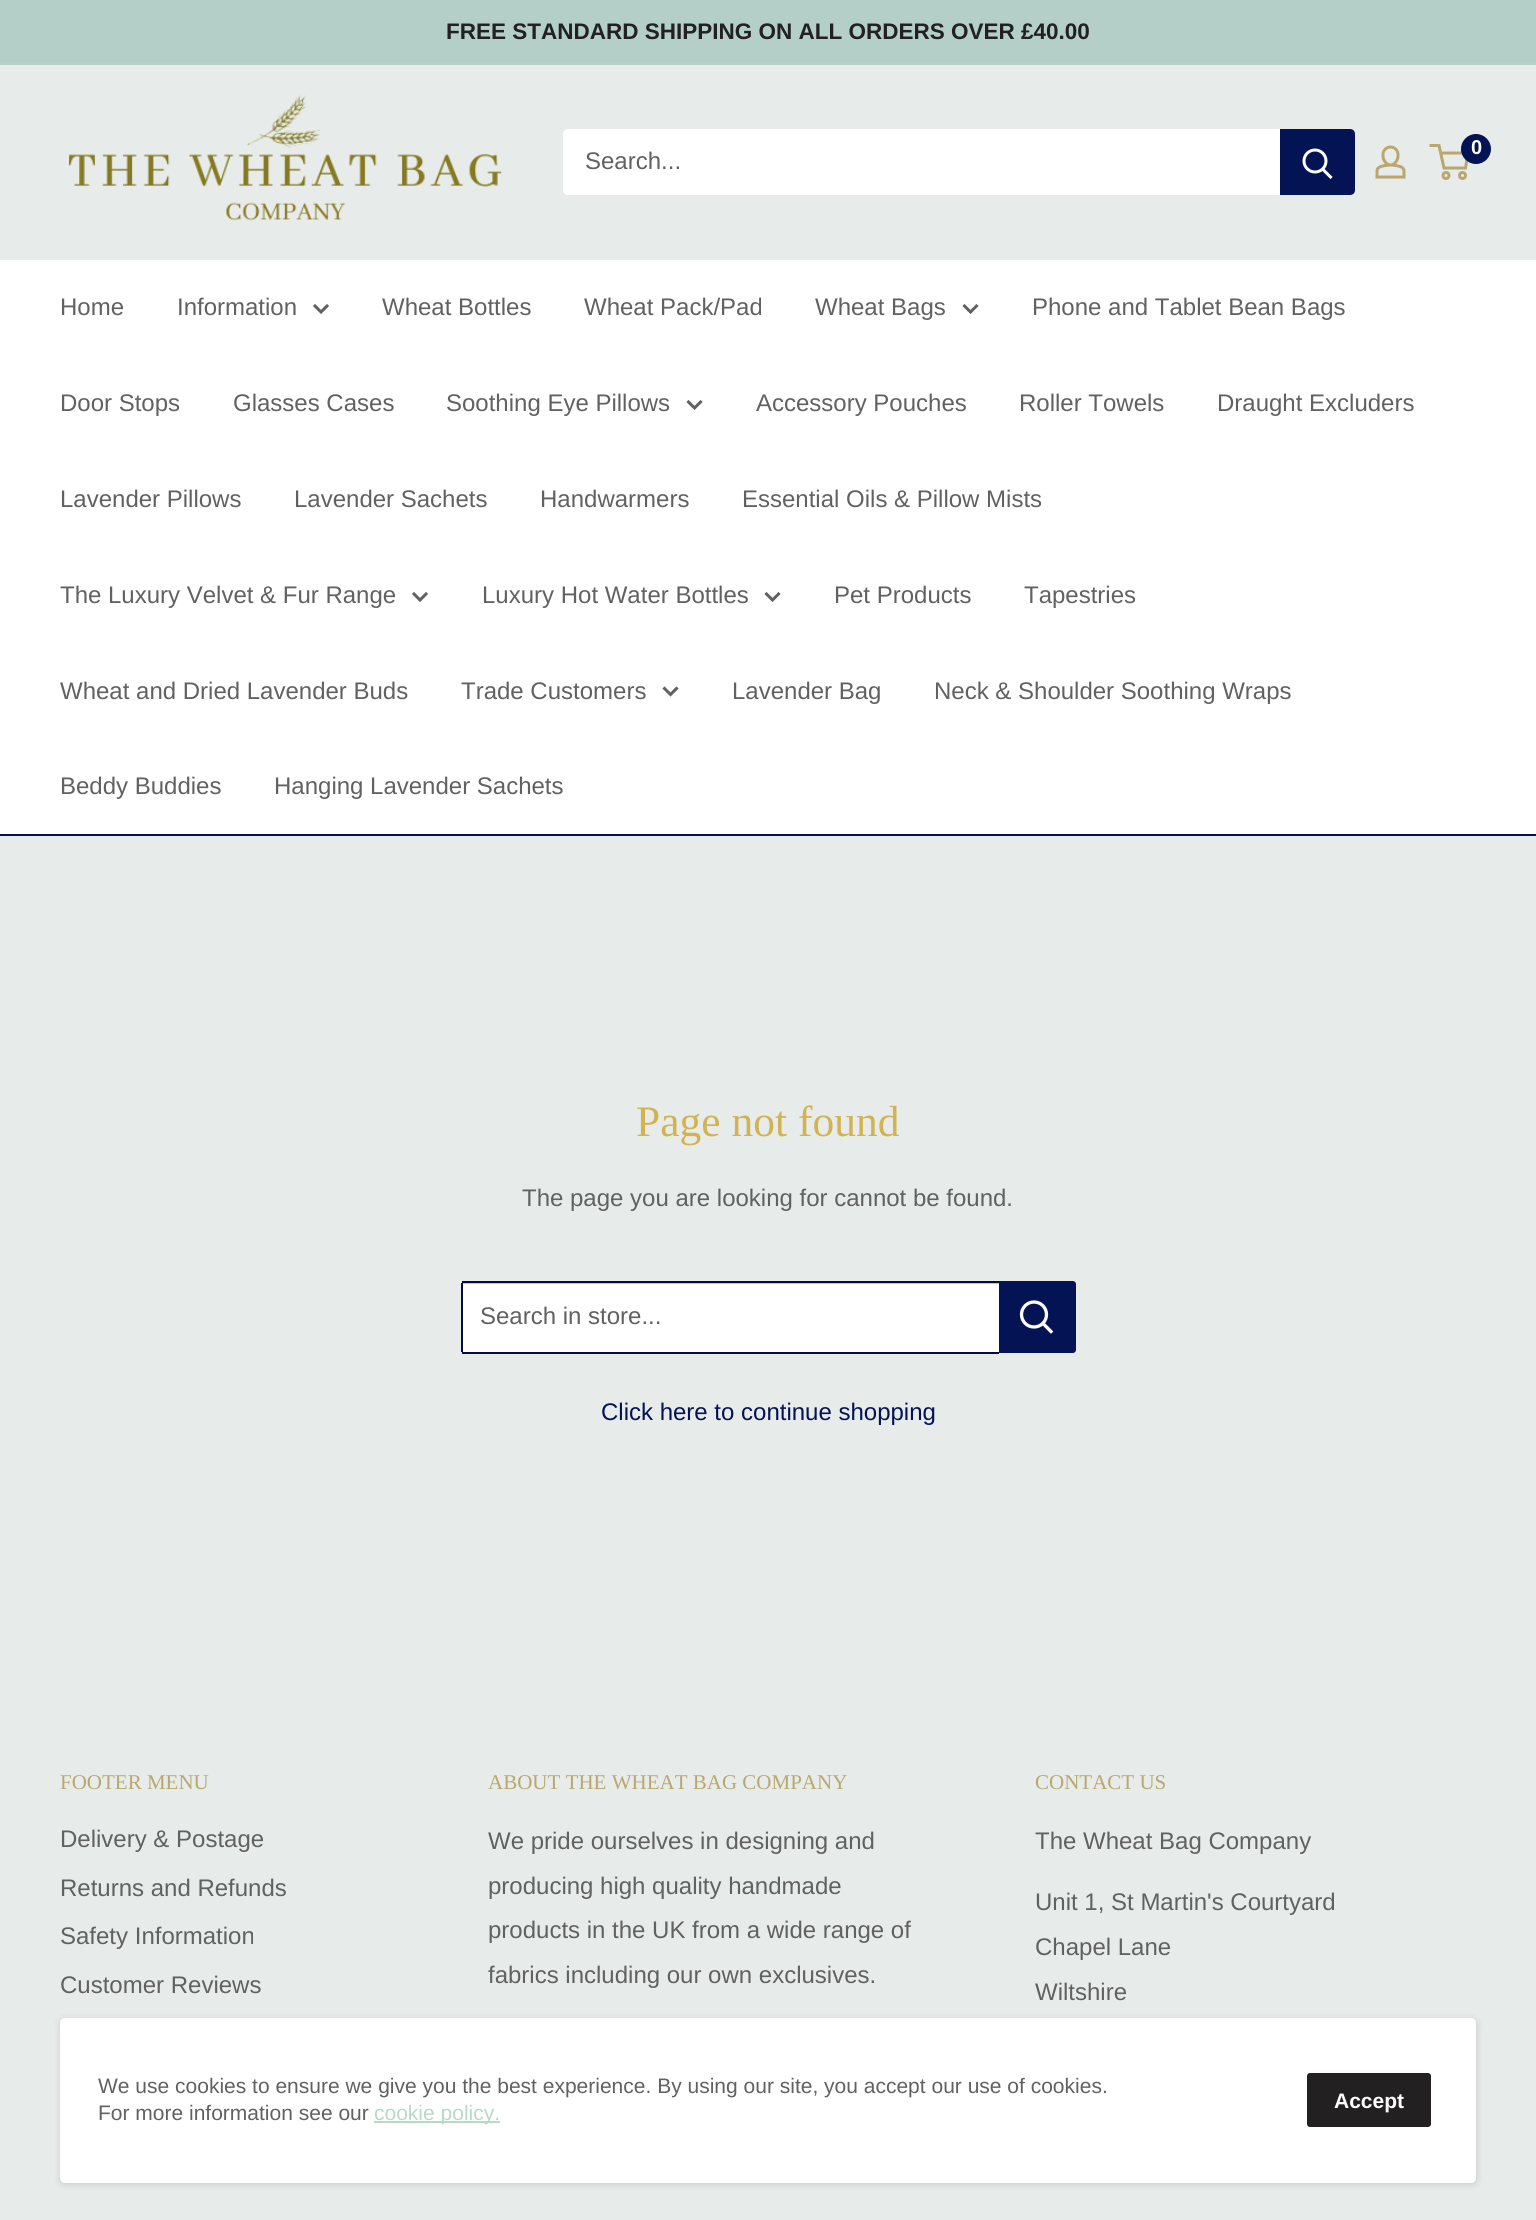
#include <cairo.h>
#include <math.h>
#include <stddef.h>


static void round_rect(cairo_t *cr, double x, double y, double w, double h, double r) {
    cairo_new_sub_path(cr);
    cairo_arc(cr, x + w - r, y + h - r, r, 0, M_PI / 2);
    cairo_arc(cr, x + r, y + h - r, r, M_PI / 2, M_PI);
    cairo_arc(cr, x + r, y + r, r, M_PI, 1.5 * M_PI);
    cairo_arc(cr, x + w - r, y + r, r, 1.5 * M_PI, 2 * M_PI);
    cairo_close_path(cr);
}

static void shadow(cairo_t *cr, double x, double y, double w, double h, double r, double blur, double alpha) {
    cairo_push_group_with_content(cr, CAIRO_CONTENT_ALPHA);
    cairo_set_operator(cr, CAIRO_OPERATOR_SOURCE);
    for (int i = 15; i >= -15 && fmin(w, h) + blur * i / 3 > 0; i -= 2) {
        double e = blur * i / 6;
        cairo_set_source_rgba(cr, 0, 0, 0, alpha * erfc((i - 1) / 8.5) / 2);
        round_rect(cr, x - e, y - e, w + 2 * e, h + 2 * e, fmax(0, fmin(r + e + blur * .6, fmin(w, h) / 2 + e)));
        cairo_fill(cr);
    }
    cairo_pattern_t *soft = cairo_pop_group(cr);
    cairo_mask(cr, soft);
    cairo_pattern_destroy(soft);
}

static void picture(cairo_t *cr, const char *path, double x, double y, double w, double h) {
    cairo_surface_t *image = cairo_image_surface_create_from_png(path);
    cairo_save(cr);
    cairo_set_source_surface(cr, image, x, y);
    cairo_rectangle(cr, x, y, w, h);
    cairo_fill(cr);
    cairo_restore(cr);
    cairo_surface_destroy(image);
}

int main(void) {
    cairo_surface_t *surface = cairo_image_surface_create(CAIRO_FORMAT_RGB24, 1536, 2220);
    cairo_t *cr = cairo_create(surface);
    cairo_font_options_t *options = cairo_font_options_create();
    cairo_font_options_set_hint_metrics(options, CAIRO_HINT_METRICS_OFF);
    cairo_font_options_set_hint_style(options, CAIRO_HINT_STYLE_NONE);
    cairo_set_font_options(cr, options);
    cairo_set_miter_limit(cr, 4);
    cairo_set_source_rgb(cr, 0.906, 0.925, 0.918);
    cairo_paint(cr);
    cairo_set_source_rgb(cr, 0.706, 0.808, 0.784);
    cairo_rectangle(cr, 0, 0, 1536, 63);
    cairo_fill(cr);
    cairo_set_source_rgb(cr, 0.71, 0.82, 0.788);
    cairo_rectangle(cr, 0, 63, 1536, 2);
    cairo_fill(cr);
    cairo_select_font_face(cr, "Liberation Sans", CAIRO_FONT_SLANT_NORMAL, CAIRO_FONT_WEIGHT_BOLD);
    cairo_set_font_size(cr, 22.5);
    cairo_set_source_rgb(cr, 0.133, 0.125, 0.129);
    cairo_move_to(cr, 446, 39);
    cairo_show_text(cr, "FREE STANDARD SHIPPING ON ALL ORDERS OVER £40.00");
    picture(cr, "img1.png", 68, 95, 434, 126);
    picture(cr, "img2.png", 1375, 145, 31, 34);
    cairo_arc(cr, 1446, 175.5, 3, 0, 2 * M_PI);
    cairo_set_source_rgb(cr, 0.725, 0.655, 0.427);
    cairo_set_line_width(cr, 3);
    cairo_stroke(cr);
    cairo_arc(cr, 1462.5, 175.5, 3, 0, 2 * M_PI);
    cairo_stroke(cr);
    cairo_new_path(cr);
    cairo_move_to(cr, 1440.5, 153);
    cairo_line_to(cr, 1468, 153);
    cairo_line_to(cr, 1465.5, 168);
    cairo_line_to(cr, 1444, 168);
    cairo_line_to(cr, 1439, 145.5);
    cairo_line_to(cr, 1429.5, 145.5);
    cairo_stroke(cr);
    cairo_set_source_rgb(cr, 0.012, 0.075, 0.329);
    cairo_arc(cr, 1476, 149, 15, 0, 2 * M_PI);
    cairo_fill(cr);
    cairo_set_font_size(cr, 20);
    cairo_set_source_rgb(cr, 1, 1, 1);
    cairo_move_to(cr, 1471, 154);
    cairo_show_text(cr, "0");
    round_rect(cr, 563, 129, 792, 66, 5);
    cairo_fill(cr);
    cairo_select_font_face(cr, "Liberation Sans", CAIRO_FONT_SLANT_NORMAL, CAIRO_FONT_WEIGHT_NORMAL);
    cairo_set_font_size(cr, 24);
    cairo_set_source_rgb(cr, 0.38, 0.38, 0.38);
    cairo_move_to(cr, 585, 169);
    cairo_show_text(cr, "Search...");
    cairo_set_source_rgb(cr, 0.012, 0.075, 0.329);
    cairo_new_path(cr);
    cairo_move_to(cr, 1280, 129);
    cairo_line_to(cr, 1350, 129);
    cairo_curve_to(cr, 1353, 129, 1355, 131, 1355, 134);
    cairo_line_to(cr, 1355, 190);
    cairo_curve_to(cr, 1355, 193, 1353, 195, 1350, 195);
    cairo_line_to(cr, 1280, 195);
    cairo_close_path(cr);
    cairo_fill(cr);
    cairo_new_path(cr);
    cairo_move_to(cr, 1330.5, 177);
    cairo_line_to(cr, 1323, 169.5);
    cairo_set_source_rgb(cr, 1, 1, 1);
    cairo_set_line_cap(cr, CAIRO_LINE_CAP_SQUARE);
    cairo_stroke(cr);
    cairo_arc(cr, 1315, 161, 11, 0, 2 * M_PI);
    cairo_set_line_cap(cr, CAIRO_LINE_CAP_BUTT);
    cairo_stroke(cr);
    cairo_rectangle(cr, 0, 260, 1536, 574);
    cairo_fill(cr);
    cairo_set_source_rgb(cr, 0.012, 0.075, 0.329);
    cairo_rectangle(cr, 0, 834, 1536, 2);
    cairo_fill(cr);
    cairo_set_source_rgb(cr, 0.38, 0.38, 0.38);
    cairo_move_to(cr, 60, 315);
    cairo_show_text(cr, "Home");
    cairo_move_to(cr, 177, 315);
    cairo_show_text(cr, "Information");
    cairo_new_path(cr);
    cairo_move_to(cr, 327, 306);
    cairo_line_to(cr, 321, 312);
    cairo_line_to(cr, 315, 306);
    cairo_set_line_cap(cr, CAIRO_LINE_CAP_SQUARE);
    cairo_stroke(cr);
    cairo_move_to(cr, 382, 315);
    cairo_show_text(cr, "Wheat Bottles");
    cairo_move_to(cr, 584, 315);
    cairo_show_text(cr, "Wheat Pack/Pad");
    cairo_move_to(cr, 815, 315);
    cairo_show_text(cr, "Wheat Bags");
    cairo_new_path(cr);
    cairo_move_to(cr, 976.5, 306);
    cairo_line_to(cr, 970.5, 312);
    cairo_line_to(cr, 964.5, 306);
    cairo_stroke(cr);
    cairo_move_to(cr, 1032, 315);
    cairo_show_text(cr, "Phone and Tablet Bean Bags");
    cairo_move_to(cr, 60, 411);
    cairo_show_text(cr, "Door Stops");
    cairo_move_to(cr, 233, 411);
    cairo_show_text(cr, "Glasses Cases");
    cairo_move_to(cr, 446, 411);
    cairo_show_text(cr, "Soothing Eye Pillows");
    cairo_new_path(cr);
    cairo_move_to(cr, 700.5, 402);
    cairo_line_to(cr, 694.5, 408);
    cairo_line_to(cr, 688.5, 402);
    cairo_stroke(cr);
    cairo_move_to(cr, 756, 411);
    cairo_show_text(cr, "Accessory Pouches");
    cairo_move_to(cr, 1019, 411);
    cairo_show_text(cr, "Roller Towels");
    cairo_move_to(cr, 1217, 411);
    cairo_show_text(cr, "Draught Excluders");
    cairo_move_to(cr, 60, 507);
    cairo_show_text(cr, "Lavender Pillows");
    cairo_move_to(cr, 294, 507);
    cairo_show_text(cr, "Lavender Sachets");
    cairo_move_to(cr, 540, 507);
    cairo_show_text(cr, "Handwarmers");
    cairo_move_to(cr, 742, 507);
    cairo_show_text(cr, "Essential Oils & Pillow Mists");
    cairo_move_to(cr, 60, 603);
    cairo_show_text(cr, "The Luxury Velvet & Fur Range");
    cairo_new_path(cr);
    cairo_move_to(cr, 426, 594);
    cairo_line_to(cr, 420, 600);
    cairo_line_to(cr, 414, 594);
    cairo_stroke(cr);
    cairo_move_to(cr, 482, 603);
    cairo_show_text(cr, "Luxury Hot Water Bottles");
    cairo_new_path(cr);
    cairo_move_to(cr, 778.5, 594);
    cairo_line_to(cr, 772.5, 600);
    cairo_line_to(cr, 766.5, 594);
    cairo_stroke(cr);
    cairo_move_to(cr, 834, 603);
    cairo_show_text(cr, "Pet Products");
    cairo_move_to(cr, 1024, 603);
    cairo_show_text(cr, "Tapestries");
    cairo_move_to(cr, 60, 699);
    cairo_show_text(cr, "Wheat and Dried Lavender Buds");
    cairo_move_to(cr, 461, 699);
    cairo_show_text(cr, "Trade Customers");
    cairo_new_path(cr);
    cairo_move_to(cr, 676.5, 688.5);
    cairo_line_to(cr, 670.5, 694.5);
    cairo_line_to(cr, 664.5, 688.5);
    cairo_stroke(cr);
    cairo_move_to(cr, 732, 699);
    cairo_show_text(cr, "Lavender Bag");
    cairo_move_to(cr, 934, 699);
    cairo_show_text(cr, "Neck & Shoulder Soothing Wraps");
    cairo_move_to(cr, 60, 794);
    cairo_show_text(cr, "Beddy Buddies");
    cairo_move_to(cr, 274, 794);
    cairo_show_text(cr, "Hanging Lavender Sachets");
    cairo_select_font_face(cr, "Liberation Serif", CAIRO_FONT_SLANT_NORMAL, CAIRO_FONT_WEIGHT_NORMAL);
    cairo_set_font_size(cr, 43.5);
    cairo_set_source_rgb(cr, 0.82, 0.702, 0.322);
    cairo_move_to(cr, 636, 1136);
    cairo_show_text(cr, "Page not found");
    cairo_select_font_face(cr, "Liberation Sans", CAIRO_FONT_SLANT_NORMAL, CAIRO_FONT_WEIGHT_NORMAL);
    cairo_set_font_size(cr, 24);
    cairo_set_source_rgb(cr, 0.38, 0.38, 0.38);
    cairo_move_to(cr, 522, 1206);
    cairo_show_text(cr, "The page you are looking for cannot be found.");
    cairo_set_source_rgb(cr, 1, 1, 1);
    cairo_new_path(cr);
    cairo_move_to(cr, 464, 1281);
    cairo_line_to(cr, 999, 1281);
    cairo_line_to(cr, 999, 1353);
    cairo_line_to(cr, 464, 1353);
    cairo_curve_to(cr, 462.5, 1353, 461, 1351.5, 461, 1350);
    cairo_line_to(cr, 461, 1284);
    cairo_curve_to(cr, 461, 1282.5, 462.5, 1281, 464, 1281);
    cairo_close_path(cr);
    cairo_fill(cr);
    cairo_set_source_rgb(cr, 0.753, 0.769, 0.831);
    cairo_new_path(cr);
    cairo_move_to(cr, 464, 1284);
    cairo_line_to(cr, 999, 1284);
    cairo_line_to(cr, 999, 1283);
    cairo_line_to(cr, 464, 1283);
    cairo_curve_to(cr, 462, 1283, 462, 1285, 462, 1286);
    cairo_curve_to(cr, 462, 1285, 463, 1284, 464, 1284);
    cairo_close_path(cr);
    cairo_fill(cr);
    cairo_set_source_rgb(cr, 0.008, 0.051, 0.231);
    cairo_rectangle(cr, 462, 1281, 537, 2);
    cairo_fill(cr);
    cairo_rectangle(cr, 462, 1352, 537, 2);
    cairo_fill(cr);
    cairo_rectangle(cr, 461, 1283, 2, 69);
    cairo_fill(cr);
    cairo_set_source_rgb(cr, 0.38, 0.38, 0.38);
    cairo_move_to(cr, 480, 1324);
    cairo_show_text(cr, "Search in store...");
    cairo_set_source_rgb(cr, 0.012, 0.075, 0.329);
    cairo_new_path(cr);
    cairo_move_to(cr, 999, 1281);
    cairo_line_to(cr, 1073, 1281);
    cairo_curve_to(cr, 1074.5, 1281, 1076, 1282.5, 1076, 1284);
    cairo_line_to(cr, 1076, 1350);
    cairo_curve_to(cr, 1076, 1351.5, 1074.5, 1353, 1073, 1353);
    cairo_line_to(cr, 999, 1353);
    cairo_close_path(cr);
    cairo_fill(cr);
    cairo_new_path(cr);
    cairo_move_to(cr, 1051, 1331.5);
    cairo_line_to(cr, 1043, 1323.5);
    cairo_set_source_rgb(cr, 1, 1, 1);
    cairo_set_line_width(cr, 3.3);
    cairo_stroke(cr);
    cairo_arc(cr, 1034, 1314.5, 12.5, 0, 2 * M_PI);
    cairo_set_line_cap(cr, CAIRO_LINE_CAP_BUTT);
    cairo_stroke(cr);
    cairo_set_source_rgb(cr, 0.012, 0.075, 0.329);
    cairo_move_to(cr, 601, 1420);
    cairo_show_text(cr, "Click here to continue shopping");
    cairo_select_font_face(cr, "Liberation Serif", CAIRO_FONT_SLANT_NORMAL, CAIRO_FONT_WEIGHT_NORMAL);
    cairo_set_font_size(cr, 21);
    cairo_set_source_rgb(cr, 0.725, 0.655, 0.427);
    cairo_move_to(cr, 60, 1789);
    cairo_show_text(cr, "FOOTER MENU");
    cairo_select_font_face(cr, "Liberation Sans", CAIRO_FONT_SLANT_NORMAL, CAIRO_FONT_WEIGHT_NORMAL);
    cairo_set_font_size(cr, 24);
    cairo_set_source_rgb(cr, 0.38, 0.38, 0.38);
    cairo_move_to(cr, 60, 1847);
    cairo_show_text(cr, "Delivery & Postage");
    cairo_move_to(cr, 60, 1896);
    cairo_show_text(cr, "Returns and Refunds");
    cairo_move_to(cr, 60, 1944);
    cairo_show_text(cr, "Safety Information");
    cairo_move_to(cr, 60, 1993);
    cairo_show_text(cr, "Customer Reviews");
    cairo_select_font_face(cr, "Liberation Serif", CAIRO_FONT_SLANT_NORMAL, CAIRO_FONT_WEIGHT_NORMAL);
    cairo_set_font_size(cr, 21);
    cairo_set_source_rgb(cr, 0.725, 0.655, 0.427);
    cairo_move_to(cr, 488, 1789);
    cairo_show_text(cr, "ABOUT THE WHEAT BAG COMPANY");
    cairo_select_font_face(cr, "Liberation Sans", CAIRO_FONT_SLANT_NORMAL, CAIRO_FONT_WEIGHT_NORMAL);
    cairo_set_font_size(cr, 24);
    cairo_set_source_rgb(cr, 0.38, 0.38, 0.38);
    cairo_move_to(cr, 488, 1849);
    cairo_show_text(cr, "We pride ourselves in designing and");
    cairo_move_to(cr, 488, 1894);
    cairo_show_text(cr, "producing high quality handmade");
    cairo_move_to(cr, 488, 1938);
    cairo_show_text(cr, "products in the UK from a wide range of");
    cairo_move_to(cr, 488, 1983);
    cairo_show_text(cr, "fabrics including our own exclusives.");
    cairo_select_font_face(cr, "Liberation Serif", CAIRO_FONT_SLANT_NORMAL, CAIRO_FONT_WEIGHT_NORMAL);
    cairo_set_font_size(cr, 21);
    cairo_set_source_rgb(cr, 0.725, 0.655, 0.427);
    cairo_move_to(cr, 1035, 1789);
    cairo_show_text(cr, "CONTACT US");
    cairo_select_font_face(cr, "Liberation Sans", CAIRO_FONT_SLANT_NORMAL, CAIRO_FONT_WEIGHT_NORMAL);
    cairo_set_font_size(cr, 24);
    cairo_set_source_rgb(cr, 0.38, 0.38, 0.38);
    cairo_move_to(cr, 1035, 1849);
    cairo_show_text(cr, "The Wheat Bag Company");
    cairo_move_to(cr, 1035, 1910);
    cairo_show_text(cr, "Unit 1, St Martin's Courtyard");
    cairo_move_to(cr, 1035, 1955);
    cairo_show_text(cr, "Chapel Lane");
    cairo_move_to(cr, 1035, 2000);
    cairo_show_text(cr, "Wiltshire");
    cairo_set_source_rgb(cr, 0, 0, 0);
    shadow(cr, 59, 2018, 1419, 168, 6, 3, 0.1);
    cairo_set_source_rgb(cr, 1, 1, 1);
    round_rect(cr, 60, 2018, 1416, 165, 5);
    cairo_fill(cr);
    cairo_set_font_size(cr, 21);
    cairo_set_source_rgb(cr, 0.38, 0.38, 0.38);
    cairo_move_to(cr, 98, 2093);
    cairo_show_text(cr, "We use cookies to ensure we give you the best experience. By using our site, you accept our use of cookies.");
    cairo_move_to(cr, 98, 2120);
    cairo_show_text(cr, "For more information see our");
    cairo_set_source_rgb(cr, 0.718, 0.851, 0.792);
    cairo_rectangle(cr, 374, 2121, 126, 2);
    cairo_fill(cr);
    cairo_move_to(cr, 374, 2120);
    cairo_show_text(cr, "cookie policy.");
    cairo_set_source_rgb(cr, 0.133, 0.125, 0.129);
    round_rect(cr, 1307, 2073, 124, 54, 3);
    cairo_fill(cr);
    cairo_select_font_face(cr, "Liberation Sans", CAIRO_FONT_SLANT_NORMAL, CAIRO_FONT_WEIGHT_BOLD);
    cairo_set_source_rgb(cr, 1, 1, 1);
    cairo_move_to(cr, 1334, 2108);
    cairo_show_text(cr, "Accept");
    cairo_surface_write_to_png(surface, "page.png");
    cairo_font_options_destroy(options);
    cairo_destroy(cr);
    cairo_surface_destroy(surface);
    return 0;
}
